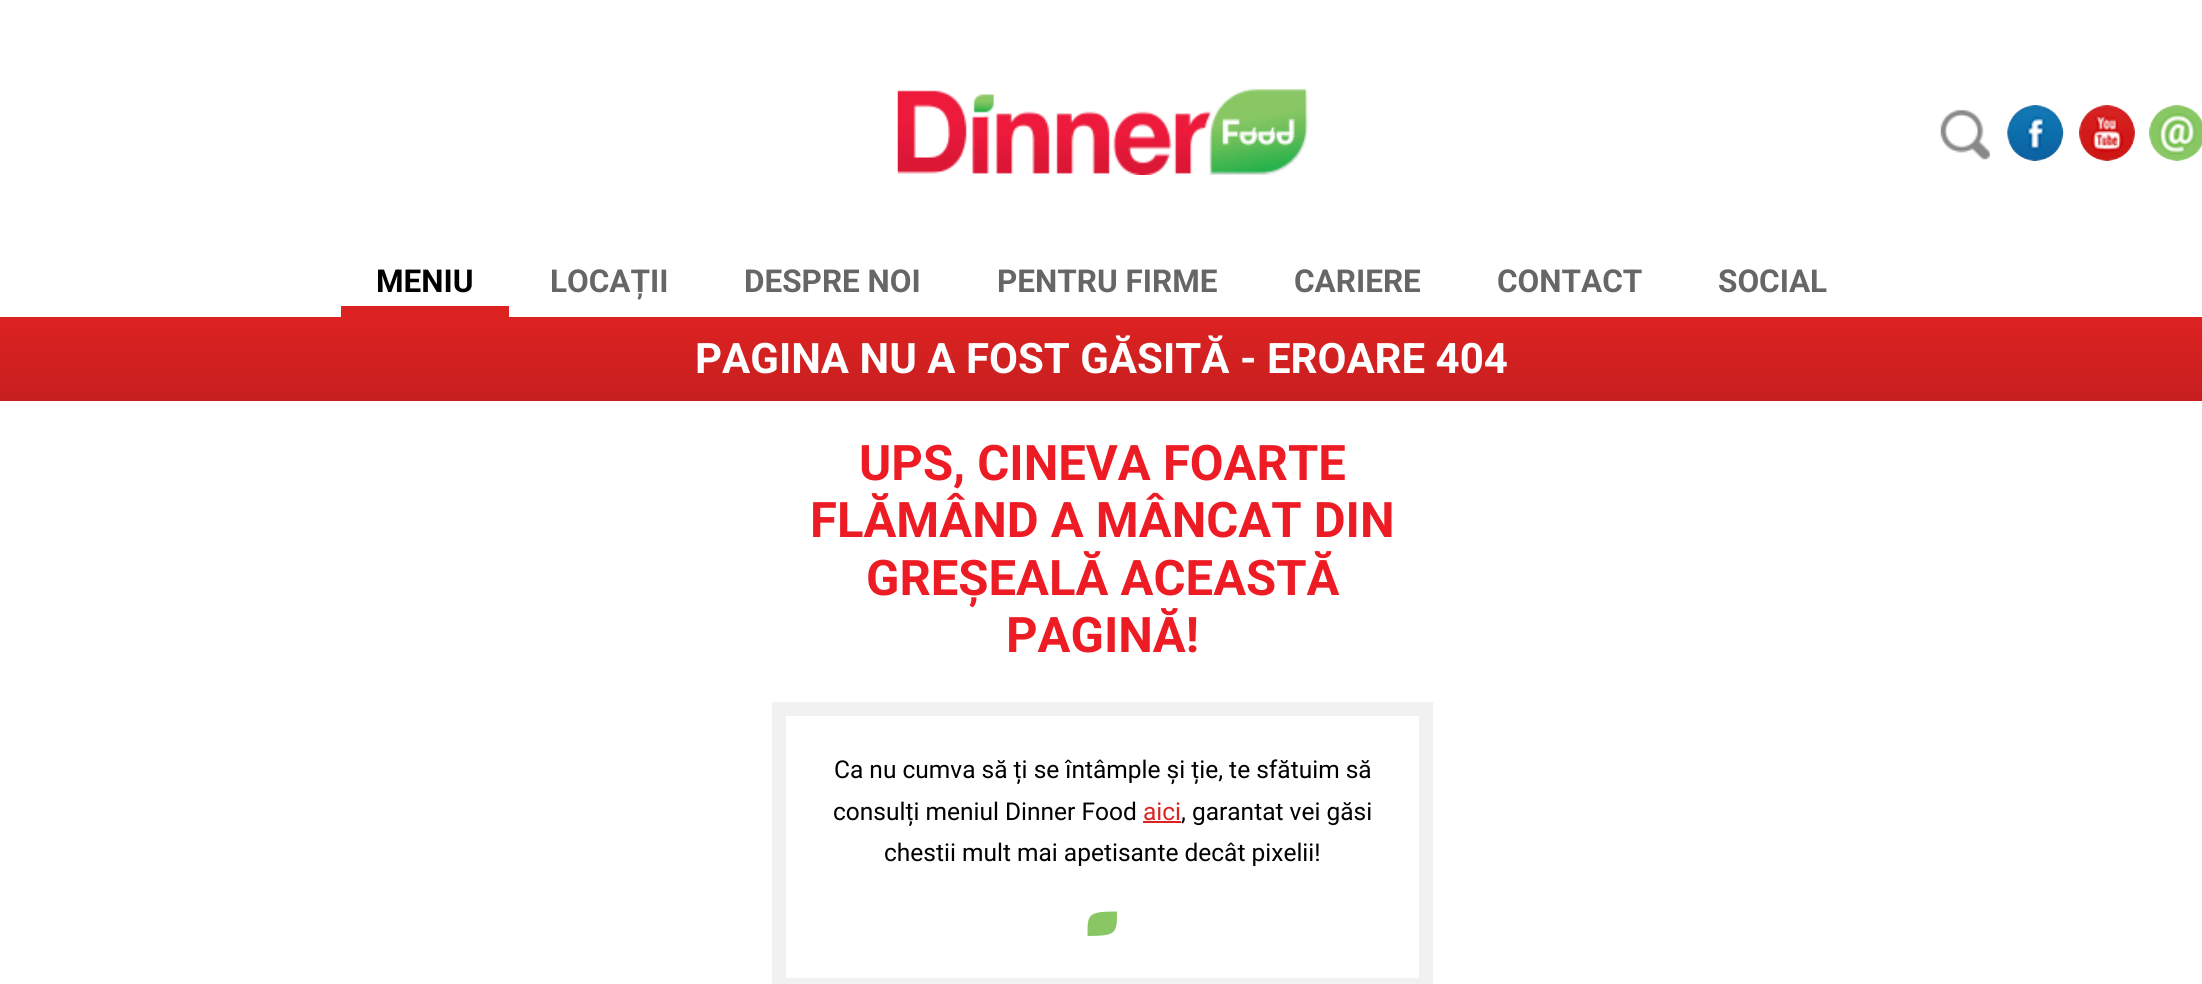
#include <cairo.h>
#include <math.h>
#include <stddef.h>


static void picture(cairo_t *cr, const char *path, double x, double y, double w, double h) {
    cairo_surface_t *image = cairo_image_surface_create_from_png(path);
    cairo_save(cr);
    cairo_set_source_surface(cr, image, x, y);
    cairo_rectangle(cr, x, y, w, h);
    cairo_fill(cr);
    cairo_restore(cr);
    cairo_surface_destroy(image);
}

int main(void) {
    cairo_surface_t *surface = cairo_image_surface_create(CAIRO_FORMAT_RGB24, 2202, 984);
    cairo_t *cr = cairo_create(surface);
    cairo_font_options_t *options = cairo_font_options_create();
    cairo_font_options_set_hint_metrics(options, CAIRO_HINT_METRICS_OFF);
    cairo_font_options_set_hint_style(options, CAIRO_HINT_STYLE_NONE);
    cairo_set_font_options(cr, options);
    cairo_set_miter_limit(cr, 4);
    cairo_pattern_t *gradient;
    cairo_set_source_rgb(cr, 1, 1, 1);
    cairo_paint(cr);
    picture(cr, "img1.png", 897, 88, 411, 87);
    picture(cr, "img2.png", 1940, 109, 50, 51);
    picture(cr, "img3.png", 2007, 105, 57, 56);
    picture(cr, "img4.png", 2079, 105, 56, 56);
    picture(cr, "img5.png", 2149, 105, 53, 56);
    cairo_set_source_rgb(cr, 0.867, 0.133, 0.133);
    cairo_rectangle(cr, 341, 306, 168, 11);
    cairo_fill(cr);
    cairo_select_font_face(cr, "Roboto", CAIRO_FONT_SLANT_NORMAL, CAIRO_FONT_WEIGHT_BOLD);
    cairo_set_font_size(cr, 31.5);
    cairo_set_source_rgb(cr, 0, 0, 0);
    cairo_move_to(cr, 376, 292);
    cairo_show_text(cr, "MENIU");
    cairo_set_source_rgb(cr, 0.4, 0.4, 0.4);
    cairo_move_to(cr, 550, 292);
    cairo_show_text(cr, "LOCAȚII");
    cairo_move_to(cr, 744, 292);
    cairo_show_text(cr, "DESPRE NOI");
    cairo_move_to(cr, 997, 292);
    cairo_show_text(cr, "PENTRU FIRME");
    cairo_move_to(cr, 1294, 292);
    cairo_show_text(cr, "CARIERE");
    cairo_move_to(cr, 1497, 292);
    cairo_show_text(cr, "CONTACT");
    cairo_move_to(cr, 1718, 292);
    cairo_show_text(cr, "SOCIAL");
    gradient = cairo_pattern_create_linear(1102, 317, 1102, 401);
    cairo_pattern_add_color_stop_rgba(gradient, 0, 0.867, 0.133, 0.133, 1);
    cairo_pattern_add_color_stop_rgba(gradient, 1, 0.78, 0.122, 0.122, 1);
    cairo_set_source(cr, gradient);
    cairo_pattern_destroy(gradient);
    cairo_rectangle(cr, 0, 317, 2202, 84);
    cairo_fill(cr);
    cairo_set_font_size(cr, 42);
    cairo_set_source_rgb(cr, 1, 1, 1);
    cairo_move_to(cr, 695, 373);
    cairo_show_text(cr, "PAGINA NU A FOST GĂSITĂ - EROARE 404");
    cairo_set_font_size(cr, 49);
    cairo_set_source_rgb(cr, 0.929, 0.11, 0.141);
    cairo_move_to(cr, 859, 480);
    cairo_show_text(cr, "UPS, CINEVA FOARTE");
    cairo_move_to(cr, 810, 537);
    cairo_show_text(cr, "FLĂMÂND A MÂNCAT DIN");
    cairo_move_to(cr, 866, 595);
    cairo_show_text(cr, "GREȘEALĂ ACEASTĂ");
    cairo_move_to(cr, 1006, 652);
    cairo_show_text(cr, "PAGINĂ!");
    cairo_rectangle(cr, 779, 709, 647, 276);
    cairo_set_source_rgb(cr, 0.945, 0.945, 0.945);
    cairo_set_line_width(cr, 14);
    cairo_stroke(cr);
    cairo_select_font_face(cr, "Roboto", CAIRO_FONT_SLANT_NORMAL, CAIRO_FONT_WEIGHT_NORMAL);
    cairo_set_font_size(cr, 24.5);
    cairo_set_source_rgb(cr, 0, 0, 0);
    cairo_move_to(cr, 834, 778);
    cairo_show_text(cr, "Ca nu cumva să ți se întâmple și ție, te sfătuim să");
    cairo_move_to(cr, 833, 820);
    cairo_show_text(cr, "consulți meniul Dinner Food");
    cairo_set_source_rgb(cr, 0.867, 0.133, 0.133);
    cairo_move_to(cr, 1143, 820);
    cairo_show_text(cr, "aici");
    cairo_rectangle(cr, 1143, 821, 38, 2);
    cairo_fill(cr);
    cairo_set_source_rgb(cr, 0, 0, 0);
    cairo_move_to(cr, 1181, 820);
    cairo_show_text(cr, ", garantat vei găsi");
    cairo_move_to(cr, 884, 861);
    cairo_show_text(cr, "chestii mult mai apetisante decât pixelii!");
    cairo_set_source_rgb(cr, 0.537, 0.78, 0.396);
    cairo_set_fill_rule(cr, CAIRO_FILL_RULE_EVEN_ODD);
    cairo_new_path(cr);
    cairo_move_to(cr, 1117, 911.5);
    cairo_curve_to(cr, 1117, 933, 1117, 936, 1087.5, 936);
    cairo_curve_to(cr, 1087.5, 914, 1087.5, 911.5, 1117, 911.5);
    cairo_close_path(cr);
    cairo_fill(cr);
    cairo_surface_write_to_png(surface, "page.png");
    cairo_font_options_destroy(options);
    cairo_destroy(cr);
    cairo_surface_destroy(surface);
    return 0;
}
